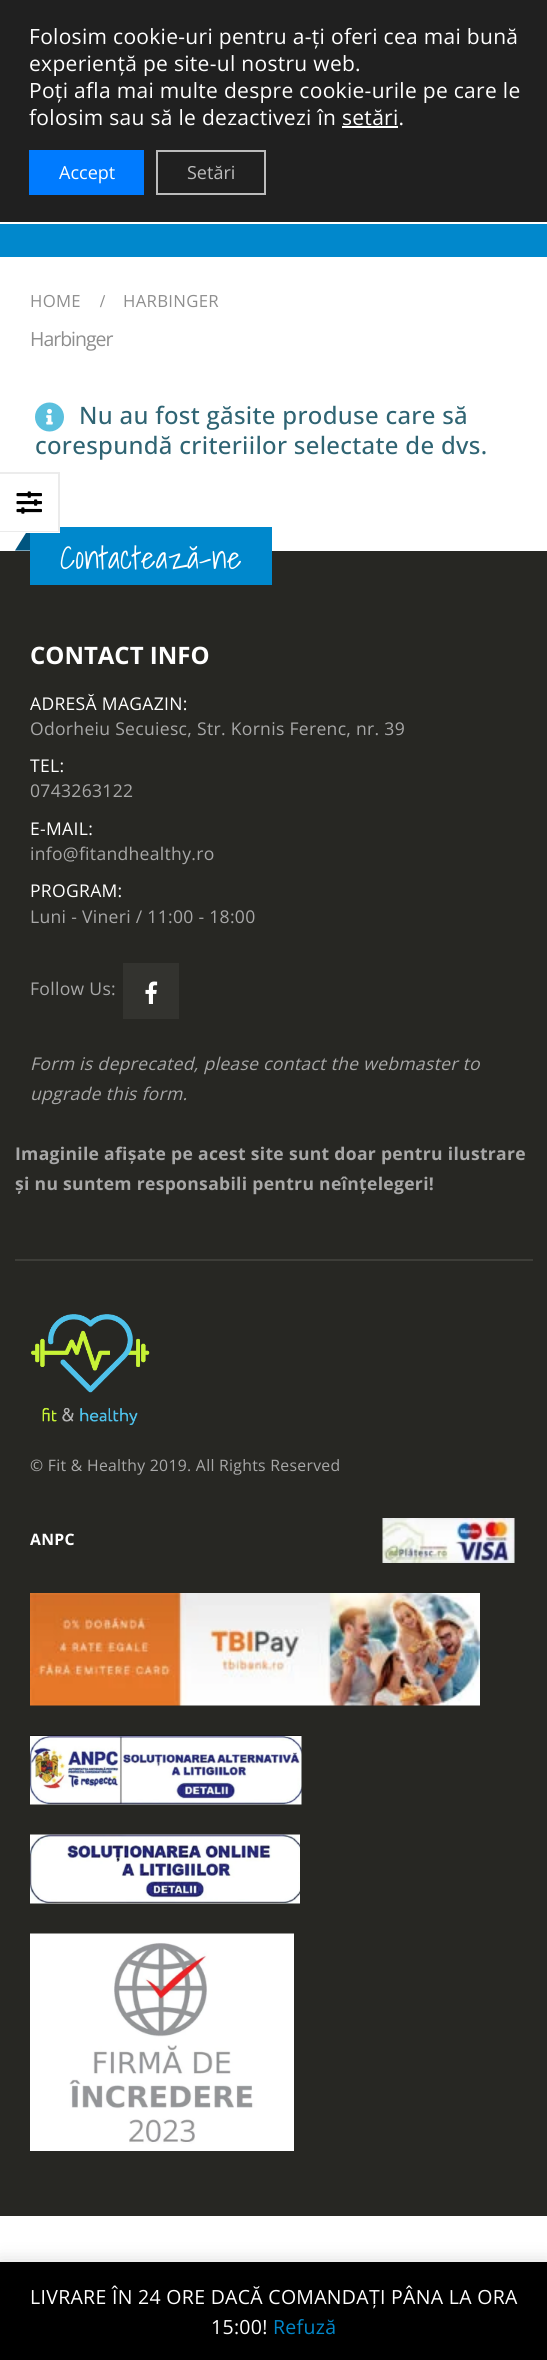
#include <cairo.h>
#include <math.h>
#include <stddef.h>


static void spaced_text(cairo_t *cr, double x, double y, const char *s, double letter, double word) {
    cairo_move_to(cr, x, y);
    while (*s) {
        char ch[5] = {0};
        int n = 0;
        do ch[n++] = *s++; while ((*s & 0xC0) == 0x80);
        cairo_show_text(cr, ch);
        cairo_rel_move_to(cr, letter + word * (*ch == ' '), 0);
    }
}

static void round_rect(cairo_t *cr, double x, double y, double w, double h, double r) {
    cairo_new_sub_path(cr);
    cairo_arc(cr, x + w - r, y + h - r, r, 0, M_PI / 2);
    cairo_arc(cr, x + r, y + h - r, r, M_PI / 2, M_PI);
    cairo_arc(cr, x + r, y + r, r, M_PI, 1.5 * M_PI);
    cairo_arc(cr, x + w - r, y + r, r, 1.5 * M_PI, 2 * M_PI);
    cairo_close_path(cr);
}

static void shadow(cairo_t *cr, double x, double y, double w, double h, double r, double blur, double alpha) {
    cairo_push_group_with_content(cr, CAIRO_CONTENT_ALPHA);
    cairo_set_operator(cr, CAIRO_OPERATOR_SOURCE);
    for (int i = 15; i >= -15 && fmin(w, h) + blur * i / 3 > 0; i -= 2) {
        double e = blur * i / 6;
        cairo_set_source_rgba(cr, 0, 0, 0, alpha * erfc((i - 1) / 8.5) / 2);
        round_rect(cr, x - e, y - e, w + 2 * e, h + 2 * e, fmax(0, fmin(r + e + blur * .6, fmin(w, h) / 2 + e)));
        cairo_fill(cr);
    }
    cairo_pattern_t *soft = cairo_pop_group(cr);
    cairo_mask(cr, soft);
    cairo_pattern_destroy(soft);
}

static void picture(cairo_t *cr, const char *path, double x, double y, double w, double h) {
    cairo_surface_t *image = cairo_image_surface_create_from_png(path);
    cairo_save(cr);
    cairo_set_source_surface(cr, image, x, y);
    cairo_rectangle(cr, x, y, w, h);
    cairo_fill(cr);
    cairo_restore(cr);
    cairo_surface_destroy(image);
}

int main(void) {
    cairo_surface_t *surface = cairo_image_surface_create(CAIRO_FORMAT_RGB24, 547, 2360);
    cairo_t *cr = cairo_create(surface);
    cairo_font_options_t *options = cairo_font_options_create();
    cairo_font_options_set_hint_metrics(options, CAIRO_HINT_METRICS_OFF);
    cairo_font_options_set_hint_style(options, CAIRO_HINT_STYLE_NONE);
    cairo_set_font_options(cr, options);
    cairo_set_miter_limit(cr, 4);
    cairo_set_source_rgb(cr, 1, 1, 1);
    cairo_paint(cr);
    cairo_set_source_rgb(cr, 0.125, 0.125, 0.125);
    cairo_rectangle(cr, 0, 0, 547, 222);
    cairo_fill(cr);
    cairo_select_font_face(cr, "Open Sans", CAIRO_FONT_SLANT_NORMAL, CAIRO_FONT_WEIGHT_NORMAL);
    cairo_set_font_size(cr, 21);
    cairo_set_source_rgb(cr, 1, 1, 1);
    spaced_text(cr, 29, 44, "Folosim cookie-uri pentru a-ți oferi cea mai bună", 0.3, 0);
    spaced_text(cr, 29, 71, "experiență pe site-ul nostru web.", 0.3, 0);
    spaced_text(cr, 29, 98, "Poți afla mai multe despre cookie-urile pe care le", 0.3, 0);
    spaced_text(cr, 29, 125, "folosim sau să le dezactivezi în setări.", 0.3, 0);
    cairo_rectangle(cr, 342, 126, 56, 2);
    cairo_fill(cr);
    cairo_set_source_rgb(cr, 0, 0.482, 1);
    cairo_rectangle(cr, 29, 150, 115, 45);
    cairo_fill(cr);
    cairo_set_font_size(cr, 18);
    cairo_set_source_rgb(cr, 1, 1, 1);
    cairo_move_to(cr, 59, 179);
    cairo_show_text(cr, "Accept");
    cairo_rectangle(cr, 157, 151, 108, 43);
    cairo_set_source_rgb(cr, 0.737, 0.737, 0.737);
    cairo_stroke(cr);
    cairo_move_to(cr, 187, 179);
    cairo_show_text(cr, "Setări");
    cairo_set_source_rgb(cr, 0.004, 0.533, 0.8);
    cairo_rectangle(cr, 0, 224, 547, 33);
    cairo_fill(cr);
    cairo_set_font_size(cr, 16.75);
    cairo_set_source_rgb(cr, 0.557, 0.557, 0.557);
    spaced_text(cr, 30, 307, "HOME", 0.3, 0);
    cairo_select_font_face(cr, "Liberation Serif", CAIRO_FONT_SLANT_NORMAL, CAIRO_FONT_WEIGHT_BOLD);
    cairo_set_font_size(cr, 18);
    spaced_text(cr, 100, 307, "/", 0.3, 0);
    cairo_select_font_face(cr, "Open Sans", CAIRO_FONT_SLANT_NORMAL, CAIRO_FONT_WEIGHT_NORMAL);
    cairo_set_font_size(cr, 16.75);
    spaced_text(cr, 123, 307, "HARBINGER", 0.3, 0);
    cairo_set_font_size(cr, 19.5);
    spaced_text(cr, 30, 346, "Harbinger", -1, 0);
    picture(cr, "img1.png", 35, 402, 29, 30);
    cairo_select_font_face(cr, "Open Sans Medium", CAIRO_FONT_SLANT_NORMAL, CAIRO_FONT_WEIGHT_NORMAL);
    cairo_set_font_size(cr, 24);
    cairo_set_source_rgb(cr, 0.184, 0.392, 0.451);
    spaced_text(cr, 79, 424, "Nu au fost găsite produse care să", 0.3, 0);
    spaced_text(cr, 35, 454, "corespundă criteriilor selectate de dvs.", 0.3, 0);
    cairo_set_source_rgb(cr, 0.153, 0.153, 0.137);
    cairo_rectangle(cr, 0, 551, 547, 1665);
    cairo_fill(cr);
    cairo_set_source_rgb(cr, 0, 0.533, 0.8);
    cairo_rectangle(cr, 30, 527, 242, 58);
    cairo_fill(cr);
    cairo_set_source_rgb(cr, 0, 0.333, 0.502);
    cairo_new_path(cr);
    cairo_move_to(cr, 30, 526.5);
    cairo_line_to(cr, 30, 550.5);
    cairo_line_to(cr, 15, 550.5);
    cairo_close_path(cr);
    cairo_fill(cr);
    cairo_set_source_rgb(cr, 1, 1, 1);
    cairo_rectangle(cr, 26, 526, 34, 7);
    cairo_fill(cr);
    cairo_set_source_rgb(cr, 0.922, 0.922, 0.922);
    cairo_new_path(cr);
    cairo_move_to(cr, 0, 472);
    cairo_line_to(cr, 60, 472);
    cairo_line_to(cr, 58, 474);
    cairo_line_to(cr, 0, 474);
    cairo_close_path(cr);
    cairo_fill(cr);
    cairo_set_source_rgba(cr, 0, 0, 0, 0.08);
    cairo_new_path(cr);
    cairo_move_to(cr, 60, 472);
    cairo_line_to(cr, 60, 532);
    cairo_line_to(cr, 58, 531);
    cairo_line_to(cr, 58, 474);
    cairo_close_path(cr);
    cairo_fill(cr);
    cairo_new_path(cr);
    cairo_move_to(cr, 60, 532);
    cairo_line_to(cr, 0, 532);
    cairo_line_to(cr, 0, 531);
    cairo_line_to(cr, 58, 531);
    cairo_close_path(cr);
    cairo_fill(cr);
    picture(cr, "img2.png", 16, 491, 26, 23);
    cairo_select_font_face(cr, "Shadows Into Light Light", CAIRO_FONT_SLANT_NORMAL, CAIRO_FONT_WEIGHT_NORMAL);
    cairo_set_font_size(cr, 31.25);
    cairo_set_source_rgb(cr, 1, 1, 1);
    spaced_text(cr, 60, 569, "Contactează-ne", 0.3, 0);
    cairo_select_font_face(cr, "Open Sans", CAIRO_FONT_SLANT_NORMAL, CAIRO_FONT_WEIGHT_BOLD);
    cairo_set_font_size(cr, 24);
    cairo_move_to(cr, 30, 664);
    cairo_show_text(cr, "CONTACT INFO");
    cairo_select_font_face(cr, "Open Sans", CAIRO_FONT_SLANT_NORMAL, CAIRO_FONT_WEIGHT_NORMAL);
    cairo_set_font_size(cr, 17.55);
    spaced_text(cr, 30, 710, "ADRESĂ MAGAZIN:", 0.3, 0);
    cairo_set_source_rgb(cr, 0.659, 0.659, 0.659);
    spaced_text(cr, 30, 735, "Odorheiu Secuiesc, Str. Kornis Ferenc, nr. 39", 0.3, 0);
    cairo_set_source_rgb(cr, 1, 1, 1);
    spaced_text(cr, 30, 772, "TEL:", 0.3, 0);
    cairo_set_source_rgb(cr, 0.659, 0.659, 0.659);
    spaced_text(cr, 30, 797, "0743263122", 0.3, 0);
    cairo_set_source_rgb(cr, 1, 1, 1);
    spaced_text(cr, 30, 835, "E-MAIL:", 0.3, 0);
    cairo_set_source_rgb(cr, 0.659, 0.659, 0.659);
    spaced_text(cr, 30, 860, "info@fitandhealthy.ro", 0.3, 0);
    cairo_set_source_rgb(cr, 1, 1, 1);
    spaced_text(cr, 30, 897, "PROGRAM:", 0.3, 0);
    cairo_set_source_rgb(cr, 0.659, 0.659, 0.659);
    spaced_text(cr, 30, 923, "Luni - Vineri / 11:00 - 18:00", 0.3, 0);
    spaced_text(cr, 30, 995, "Follow Us:", 0.3, 0);
    cairo_set_source_rgb(cr, 0.2, 0.2, 0.184);
    cairo_rectangle(cr, 123, 963, 56, 56);
    cairo_fill(cr);
    picture(cr, "img3.png", 145, 981, 13, 23);
    cairo_select_font_face(cr, "Open Sans", CAIRO_FONT_SLANT_ITALIC, CAIRO_FONT_WEIGHT_NORMAL);
    cairo_set_source_rgb(cr, 0.659, 0.659, 0.659);
    spaced_text(cr, 30, 1070, "Form is deprecated, please contact the webmaster to", 0.3, 0);
    spaced_text(cr, 30, 1100, "upgrade this form.", 0.3, 0);
    cairo_select_font_face(cr, "Open Sans", CAIRO_FONT_SLANT_NORMAL, CAIRO_FONT_WEIGHT_BOLD);
    spaced_text(cr, 15, 1160, "Imaginile afișate pe acest site sunt doar pentru ilustrare", 0.3, 0);
    spaced_text(cr, 15, 1190, "și nu suntem responsabili pentru neînțelegeri!", 0.3, 0);
    cairo_set_source_rgb(cr, 0.239, 0.239, 0.22);
    cairo_rectangle(cr, 15, 1259, 518, 2);
    cairo_fill(cr);
    picture(cr, "img4.png", 31, 1314, 119, 112);
    cairo_select_font_face(cr, "Open Sans", CAIRO_FONT_SLANT_NORMAL, CAIRO_FONT_WEIGHT_NORMAL);
    cairo_set_font_size(cr, 15.75);
    cairo_set_source_rgb(cr, 0.659, 0.659, 0.659);
    spaced_text(cr, 30, 1471, "© Fit & Healthy 2019. All Rights Reserved", 0.3, 0);
    cairo_select_font_face(cr, "Open Sans", CAIRO_FONT_SLANT_NORMAL, CAIRO_FONT_WEIGHT_BOLD);
    cairo_set_source_rgb(cr, 1, 1, 1);
    spaced_text(cr, 30, 1545, "ANPC", 0.3, 0);
    picture(cr, "img5.png", 382, 1518, 133, 45);
    picture(cr, "img6.png", 30, 1593, 450, 113);
    picture(cr, "img7.png", 30, 1735, 272, 70);
    picture(cr, "img8.png", 30, 1834, 270, 70);
    picture(cr, "img9.png", 30, 1933, 264, 218);
    cairo_set_source_rgb(cr, 0, 0, 0);
    shadow(cr, 0, 2264, 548, 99, 0, 10, 0.2);
    cairo_set_source_rgb(cr, 0, 0, 0);
    cairo_rectangle(cr, 0, 2262, 547, 98);
    cairo_fill(cr);
    cairo_select_font_face(cr, "Open Sans", CAIRO_FONT_SLANT_NORMAL, CAIRO_FONT_WEIGHT_NORMAL);
    cairo_set_font_size(cr, 19.5);
    cairo_set_source_rgb(cr, 1, 1, 1);
    spaced_text(cr, 30, 2304, "LIVRARE ÎN 24 ORE DACĂ COMANDAȚI PÂNA LA ORA", 0.3, 0);
    spaced_text(cr, 211, 2334, "15:00!", 0.3, 0);
    cairo_set_source_rgb(cr, 0.004, 0.533, 0.8);
    spaced_text(cr, 273, 2334, "Refuză", 0.3, 0);
    cairo_surface_write_to_png(surface, "page.png");
    cairo_font_options_destroy(options);
    cairo_destroy(cr);
    cairo_surface_destroy(surface);
    return 0;
}
